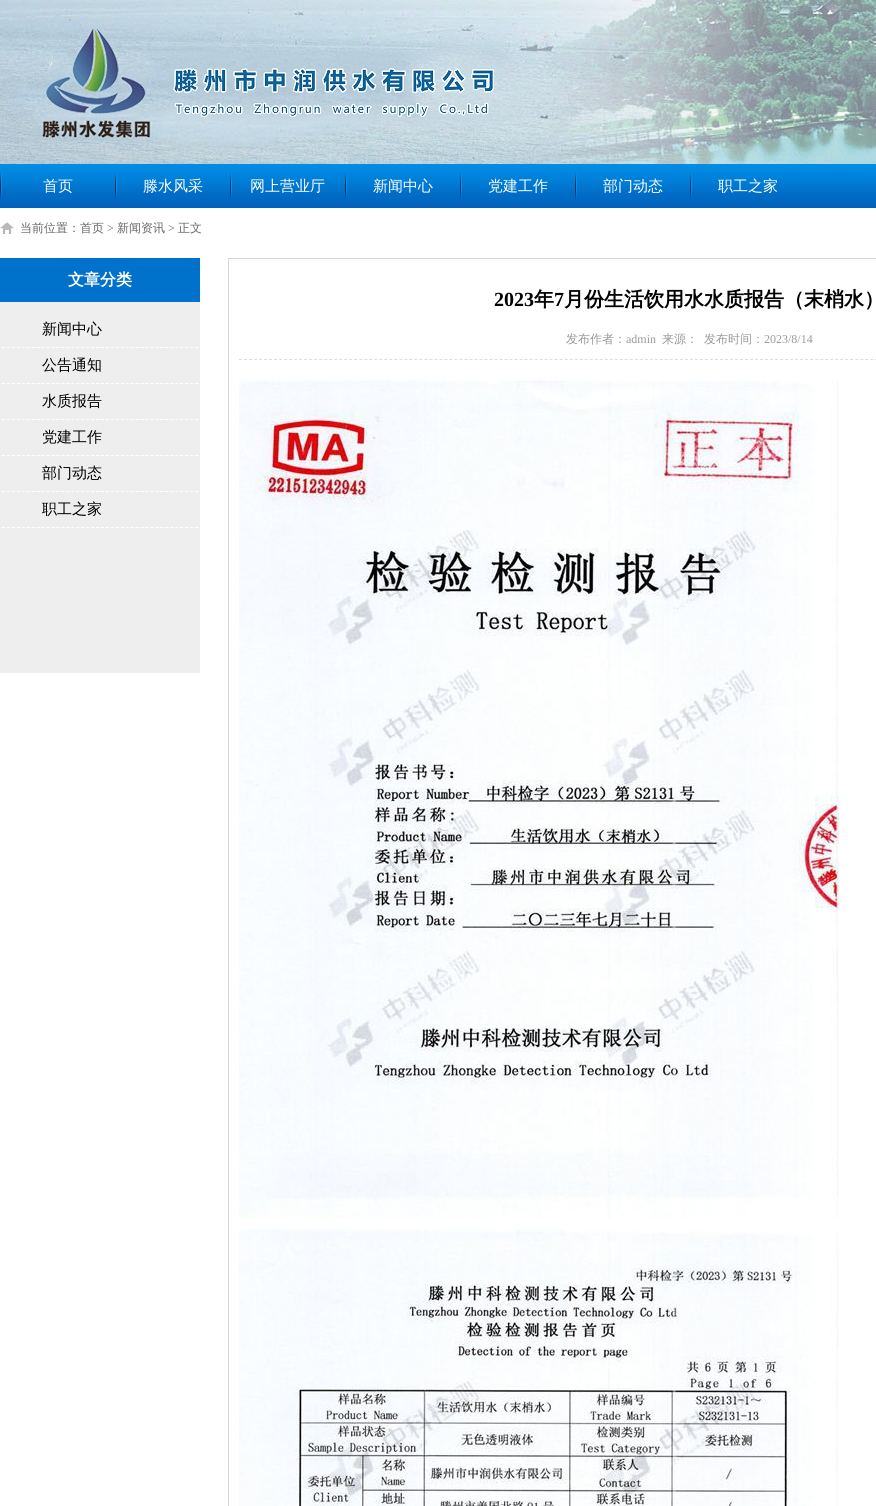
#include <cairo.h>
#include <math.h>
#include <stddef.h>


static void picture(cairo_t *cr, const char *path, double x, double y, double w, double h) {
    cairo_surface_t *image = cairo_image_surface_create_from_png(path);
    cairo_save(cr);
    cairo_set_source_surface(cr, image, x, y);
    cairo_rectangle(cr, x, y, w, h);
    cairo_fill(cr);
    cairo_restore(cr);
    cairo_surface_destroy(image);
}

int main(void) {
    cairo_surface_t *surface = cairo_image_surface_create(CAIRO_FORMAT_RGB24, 876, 1506);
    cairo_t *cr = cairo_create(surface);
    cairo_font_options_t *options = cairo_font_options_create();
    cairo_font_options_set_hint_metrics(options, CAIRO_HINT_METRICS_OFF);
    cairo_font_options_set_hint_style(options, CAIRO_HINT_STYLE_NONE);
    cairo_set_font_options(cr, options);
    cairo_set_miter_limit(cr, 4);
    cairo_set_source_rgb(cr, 1, 1, 1);
    cairo_paint(cr);
    picture(cr, "img1.png", 0, 0, 876, 164);
    picture(cr, "img2.png", 0, 164, 876, 44);
    picture(cr, "img3.png", 0, 172, 2, 30);
    cairo_select_font_face(cr, "WenQuanYi Zen Hei Medium", CAIRO_FONT_SLANT_NORMAL, CAIRO_FONT_WEIGHT_NORMAL);
    cairo_set_font_size(cr, 15);
    cairo_set_source_rgb(cr, 1, 1, 1);
    cairo_move_to(cr, 43, 191);
    cairo_show_text(cr, "首页");
    picture(cr, "img3.png", 115, 172, 2, 30);
    cairo_move_to(cr, 143, 191);
    cairo_show_text(cr, "滕水风采");
    picture(cr, "img3.png", 230, 172, 2, 30);
    cairo_move_to(cr, 250, 191);
    cairo_show_text(cr, "网上营业厅");
    picture(cr, "img3.png", 345, 172, 2, 30);
    cairo_move_to(cr, 373, 191);
    cairo_show_text(cr, "新闻中心");
    picture(cr, "img3.png", 460, 172, 2, 30);
    cairo_move_to(cr, 488, 191);
    cairo_show_text(cr, "党建工作");
    picture(cr, "img3.png", 575, 172, 2, 30);
    cairo_move_to(cr, 603, 191);
    cairo_show_text(cr, "部门动态");
    picture(cr, "img3.png", 690, 172, 2, 30);
    cairo_move_to(cr, 718, 191);
    cairo_show_text(cr, "职工之家");
    picture(cr, "img4.png", 0, 222, 14, 12);
    cairo_set_font_size(cr, 12);
    cairo_set_source_rgb(cr, 0.4, 0.4, 0.4);
    cairo_move_to(cr, 20, 232);
    cairo_show_text(cr, "当前位置：首页");
    cairo_select_font_face(cr, "Liberation Serif", CAIRO_FONT_SLANT_NORMAL, CAIRO_FONT_WEIGHT_NORMAL);
    cairo_move_to(cr, 107, 232);
    cairo_show_text(cr, ">");
    cairo_select_font_face(cr, "WenQuanYi Zen Hei Medium", CAIRO_FONT_SLANT_NORMAL, CAIRO_FONT_WEIGHT_NORMAL);
    cairo_move_to(cr, 117, 232);
    cairo_show_text(cr, "新闻资讯");
    cairo_select_font_face(cr, "Liberation Serif", CAIRO_FONT_SLANT_NORMAL, CAIRO_FONT_WEIGHT_NORMAL);
    cairo_move_to(cr, 168, 232);
    cairo_show_text(cr, ">");
    cairo_select_font_face(cr, "WenQuanYi Zen Hei Medium", CAIRO_FONT_SLANT_NORMAL, CAIRO_FONT_WEIGHT_NORMAL);
    cairo_move_to(cr, 178, 232);
    cairo_show_text(cr, "正文");
    cairo_set_source_rgb(cr, 0.933, 0.933, 0.933);
    cairo_rectangle(cr, 0, 302, 200, 371);
    cairo_fill(cr);
    cairo_set_source_rgb(cr, 0, 0.447, 0.796);
    cairo_rectangle(cr, 0, 258, 200, 44);
    cairo_fill(cr);
    cairo_select_font_face(cr, "WenQuanYi Zen Hei", CAIRO_FONT_SLANT_NORMAL, CAIRO_FONT_WEIGHT_BOLD);
    cairo_set_font_size(cr, 16);
    cairo_set_source_rgb(cr, 1, 1, 1);
    cairo_move_to(cr, 68, 285);
    cairo_show_text(cr, "文章分类");
    cairo_new_path(cr);
    cairo_move_to(cr, 2, 347.5);
    cairo_line_to(cr, 198, 347.5);
    cairo_set_line_width(cr, 1);
    cairo_set_dash(cr, (double[]){3, 1.95}, 2, 0);
    cairo_stroke(cr);
    cairo_select_font_face(cr, "WenQuanYi Zen Hei Medium", CAIRO_FONT_SLANT_NORMAL, CAIRO_FONT_WEIGHT_NORMAL);
    cairo_set_font_size(cr, 15);
    cairo_set_source_rgb(cr, 0, 0, 0);
    cairo_move_to(cr, 42, 334);
    cairo_show_text(cr, "新闻中心");
    cairo_new_path(cr);
    cairo_move_to(cr, 2, 383.5);
    cairo_line_to(cr, 198, 383.5);
    cairo_set_source_rgb(cr, 1, 1, 1);
    cairo_stroke(cr);
    cairo_set_source_rgb(cr, 0, 0, 0);
    cairo_move_to(cr, 42, 370);
    cairo_show_text(cr, "公告通知");
    cairo_new_path(cr);
    cairo_move_to(cr, 2, 419.5);
    cairo_line_to(cr, 198, 419.5);
    cairo_set_source_rgb(cr, 1, 1, 1);
    cairo_stroke(cr);
    cairo_set_source_rgb(cr, 0, 0, 0);
    cairo_move_to(cr, 42, 406);
    cairo_show_text(cr, "水质报告");
    cairo_new_path(cr);
    cairo_move_to(cr, 2, 455.5);
    cairo_line_to(cr, 198, 455.5);
    cairo_set_source_rgb(cr, 1, 1, 1);
    cairo_stroke(cr);
    cairo_set_source_rgb(cr, 0, 0, 0);
    cairo_move_to(cr, 42, 442);
    cairo_show_text(cr, "党建工作");
    cairo_new_path(cr);
    cairo_move_to(cr, 2, 491.5);
    cairo_line_to(cr, 198, 491.5);
    cairo_set_source_rgb(cr, 1, 1, 1);
    cairo_stroke(cr);
    cairo_set_source_rgb(cr, 0, 0, 0);
    cairo_move_to(cr, 42, 478);
    cairo_show_text(cr, "部门动态");
    cairo_new_path(cr);
    cairo_move_to(cr, 2, 527.5);
    cairo_line_to(cr, 198, 527.5);
    cairo_set_source_rgb(cr, 1, 1, 1);
    cairo_stroke(cr);
    cairo_set_source_rgb(cr, 0, 0, 0);
    cairo_move_to(cr, 42, 514);
    cairo_show_text(cr, "职工之家");
    cairo_rectangle(cr, 228.5, 258.5, 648, 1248);
    cairo_set_source_rgb(cr, 0.839, 0.839, 0.839);
    cairo_set_dash(cr, NULL, 0, 0);
    cairo_stroke(cr);
    cairo_new_path(cr);
    cairo_move_to(cr, 239, 359.5);
    cairo_line_to(cr, 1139, 359.5);
    cairo_set_source_rgb(cr, 0.867, 0.867, 0.867);
    cairo_set_dash(cr, (double[]){3, 2.01}, 2, 0);
    cairo_stroke(cr);
    cairo_select_font_face(cr, "Liberation Serif", CAIRO_FONT_SLANT_NORMAL, CAIRO_FONT_WEIGHT_BOLD);
    cairo_set_font_size(cr, 20);
    cairo_set_source_rgb(cr, 0, 0, 0);
    cairo_move_to(cr, 494, 306);
    cairo_show_text(cr, "2023");
    cairo_select_font_face(cr, "WenQuanYi Zen Hei", CAIRO_FONT_SLANT_NORMAL, CAIRO_FONT_WEIGHT_BOLD);
    cairo_move_to(cr, 534, 306);
    cairo_show_text(cr, "年");
    cairo_select_font_face(cr, "Liberation Serif", CAIRO_FONT_SLANT_NORMAL, CAIRO_FONT_WEIGHT_BOLD);
    cairo_move_to(cr, 554, 306);
    cairo_show_text(cr, "7");
    cairo_select_font_face(cr, "WenQuanYi Zen Hei", CAIRO_FONT_SLANT_NORMAL, CAIRO_FONT_WEIGHT_BOLD);
    cairo_move_to(cr, 564, 306);
    cairo_show_text(cr, "月份生活饮用水水质报告（末梢水）");
    cairo_select_font_face(cr, "WenQuanYi Zen Hei Medium", CAIRO_FONT_SLANT_NORMAL, CAIRO_FONT_WEIGHT_NORMAL);
    cairo_set_font_size(cr, 12);
    cairo_set_source_rgb(cr, 0.6, 0.6, 0.6);
    cairo_move_to(cr, 566, 343);
    cairo_show_text(cr, "发布作者：");
    cairo_select_font_face(cr, "Liberation Serif", CAIRO_FONT_SLANT_NORMAL, CAIRO_FONT_WEIGHT_NORMAL);
    cairo_move_to(cr, 626, 343);
    cairo_show_text(cr, "admin");
    cairo_select_font_face(cr, "WenQuanYi Zen Hei Medium", CAIRO_FONT_SLANT_NORMAL, CAIRO_FONT_WEIGHT_NORMAL);
    cairo_move_to(cr, 662, 343);
    cairo_show_text(cr, "来源：");
    cairo_move_to(cr, 704, 343);
    cairo_show_text(cr, "发布时间：");
    cairo_select_font_face(cr, "Liberation Serif", CAIRO_FONT_SLANT_NORMAL, CAIRO_FONT_WEIGHT_NORMAL);
    cairo_move_to(cr, 764, 343);
    cairo_show_text(cr, "2023/8/14");
    picture(cr, "img5.png", 239, 380, 600, 838);
    picture(cr, "img6.png", 239, 1228, 600, 278);
    cairo_surface_write_to_png(surface, "page.png");
    cairo_font_options_destroy(options);
    cairo_destroy(cr);
    cairo_surface_destroy(surface);
    return 0;
}
